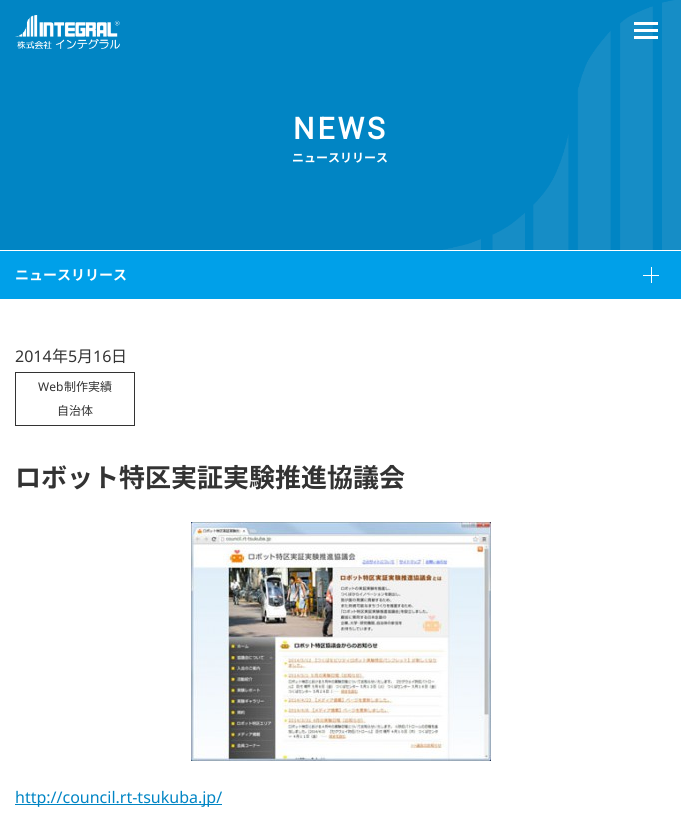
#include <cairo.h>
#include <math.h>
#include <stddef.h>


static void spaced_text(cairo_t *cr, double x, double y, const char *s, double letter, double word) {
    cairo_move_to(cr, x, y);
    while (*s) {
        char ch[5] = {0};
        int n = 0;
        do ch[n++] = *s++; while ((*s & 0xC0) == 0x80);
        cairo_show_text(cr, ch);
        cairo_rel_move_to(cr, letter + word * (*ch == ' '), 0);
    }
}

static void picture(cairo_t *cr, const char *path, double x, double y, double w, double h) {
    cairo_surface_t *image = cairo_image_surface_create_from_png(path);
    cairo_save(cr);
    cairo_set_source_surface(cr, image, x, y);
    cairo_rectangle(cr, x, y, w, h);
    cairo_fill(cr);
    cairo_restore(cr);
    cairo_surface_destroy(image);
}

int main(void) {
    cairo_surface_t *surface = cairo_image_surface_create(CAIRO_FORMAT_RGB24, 681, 831);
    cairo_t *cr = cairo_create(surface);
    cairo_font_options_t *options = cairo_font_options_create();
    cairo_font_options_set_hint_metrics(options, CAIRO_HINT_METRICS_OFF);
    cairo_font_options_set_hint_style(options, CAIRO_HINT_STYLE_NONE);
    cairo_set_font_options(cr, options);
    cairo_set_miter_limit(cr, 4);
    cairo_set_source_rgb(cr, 1, 1, 1);
    cairo_paint(cr);
    cairo_set_source_rgb(cr, 0.004, 0.522, 0.769);
    cairo_rectangle(cr, 0, 0, 443, 250);
    cairo_fill(cr);
    picture(cr, "img1.png", 15, 15, 105, 34);
    picture(cr, "img2.png", 443, 0, 238, 250);
    cairo_set_source_rgb(cr, 1, 1, 1);
    cairo_rectangle(cr, 634, 22, 24, 3);
    cairo_fill(cr);
    cairo_rectangle(cr, 634, 29, 24, 3);
    cairo_fill(cr);
    cairo_rectangle(cr, 634, 36, 24, 3);
    cairo_fill(cr);
    cairo_select_font_face(cr, "Roboto", CAIRO_FONT_SLANT_NORMAL, CAIRO_FONT_WEIGHT_BOLD);
    cairo_set_font_size(cr, 30);
    spaced_text(cr, 293, 139, "NEWS", 3, 0);
    cairo_select_font_face(cr, "Noto Sans CJK JP", CAIRO_FONT_SLANT_NORMAL, CAIRO_FONT_WEIGHT_BOLD);
    cairo_set_font_size(cr, 12);
    cairo_move_to(cr, 292, 162);
    cairo_show_text(cr, "ニュースリリース");
    cairo_set_source_rgb(cr, 0, 0.627, 0.914);
    cairo_rectangle(cr, 0, 251, 681, 48);
    cairo_fill(cr);
    cairo_set_font_size(cr, 14);
    cairo_set_source_rgb(cr, 1, 1, 1);
    cairo_move_to(cr, 15, 280);
    cairo_show_text(cr, "ニュースリリース");
    cairo_rectangle(cr, 651, 267, 1, 16);
    cairo_fill(cr);
    cairo_rectangle(cr, 643, 275, 16, 1);
    cairo_fill(cr);
    cairo_select_font_face(cr, "Noto Sans", CAIRO_FONT_SLANT_NORMAL, CAIRO_FONT_WEIGHT_NORMAL);
    cairo_set_font_size(cr, 16);
    cairo_set_source_rgb(cr, 0.2, 0.2, 0.2);
    cairo_move_to(cr, 15, 362);
    cairo_show_text(cr, "2014");
    cairo_select_font_face(cr, "Noto Sans CJK JP", CAIRO_FONT_SLANT_NORMAL, CAIRO_FONT_WEIGHT_NORMAL);
    cairo_move_to(cr, 52, 362);
    cairo_show_text(cr, "年");
    cairo_select_font_face(cr, "Noto Sans", CAIRO_FONT_SLANT_NORMAL, CAIRO_FONT_WEIGHT_NORMAL);
    cairo_move_to(cr, 68, 362);
    cairo_show_text(cr, "5");
    cairo_select_font_face(cr, "Noto Sans CJK JP", CAIRO_FONT_SLANT_NORMAL, CAIRO_FONT_WEIGHT_NORMAL);
    cairo_move_to(cr, 77, 362);
    cairo_show_text(cr, "月");
    cairo_select_font_face(cr, "Noto Sans", CAIRO_FONT_SLANT_NORMAL, CAIRO_FONT_WEIGHT_NORMAL);
    cairo_move_to(cr, 93, 362);
    cairo_show_text(cr, "16");
    cairo_select_font_face(cr, "Noto Sans CJK JP", CAIRO_FONT_SLANT_NORMAL, CAIRO_FONT_WEIGHT_NORMAL);
    cairo_move_to(cr, 111, 362);
    cairo_show_text(cr, "日");
    cairo_rectangle(cr, 15.5, 372.5, 119, 53);
    cairo_set_line_width(cr, 1);
    cairo_stroke(cr);
    cairo_select_font_face(cr, "Noto Sans", CAIRO_FONT_SLANT_NORMAL, CAIRO_FONT_WEIGHT_NORMAL);
    cairo_set_font_size(cr, 12);
    cairo_move_to(cr, 38, 391);
    cairo_show_text(cr, "Web");
    cairo_select_font_face(cr, "Noto Sans CJK JP", CAIRO_FONT_SLANT_NORMAL, CAIRO_FONT_WEIGHT_NORMAL);
    cairo_move_to(cr, 64, 391);
    cairo_show_text(cr, "制作実績");
    cairo_move_to(cr, 57, 415);
    cairo_show_text(cr, "自治体");
    cairo_select_font_face(cr, "Noto Sans CJK JP", CAIRO_FONT_SLANT_NORMAL, CAIRO_FONT_WEIGHT_BOLD);
    cairo_set_font_size(cr, 26);
    cairo_move_to(cr, 15, 487);
    cairo_show_text(cr, "ロボット特区実証実験推進協議会");
    picture(cr, "img3.png", 191, 522, 300, 239);
    cairo_set_source_rgb(cr, 0.004, 0.522, 0.769);
    cairo_rectangle(cr, 15, 804, 207, 1);
    cairo_fill(cr);
    cairo_select_font_face(cr, "Noto Sans", CAIRO_FONT_SLANT_NORMAL, CAIRO_FONT_WEIGHT_NORMAL);
    cairo_set_font_size(cr, 16);
    cairo_move_to(cr, 15, 803);
    cairo_show_text(cr, "http://council.rt-tsukuba.jp/");
    cairo_surface_write_to_png(surface, "page.png");
    cairo_font_options_destroy(options);
    cairo_destroy(cr);
    cairo_surface_destroy(surface);
    return 0;
}
